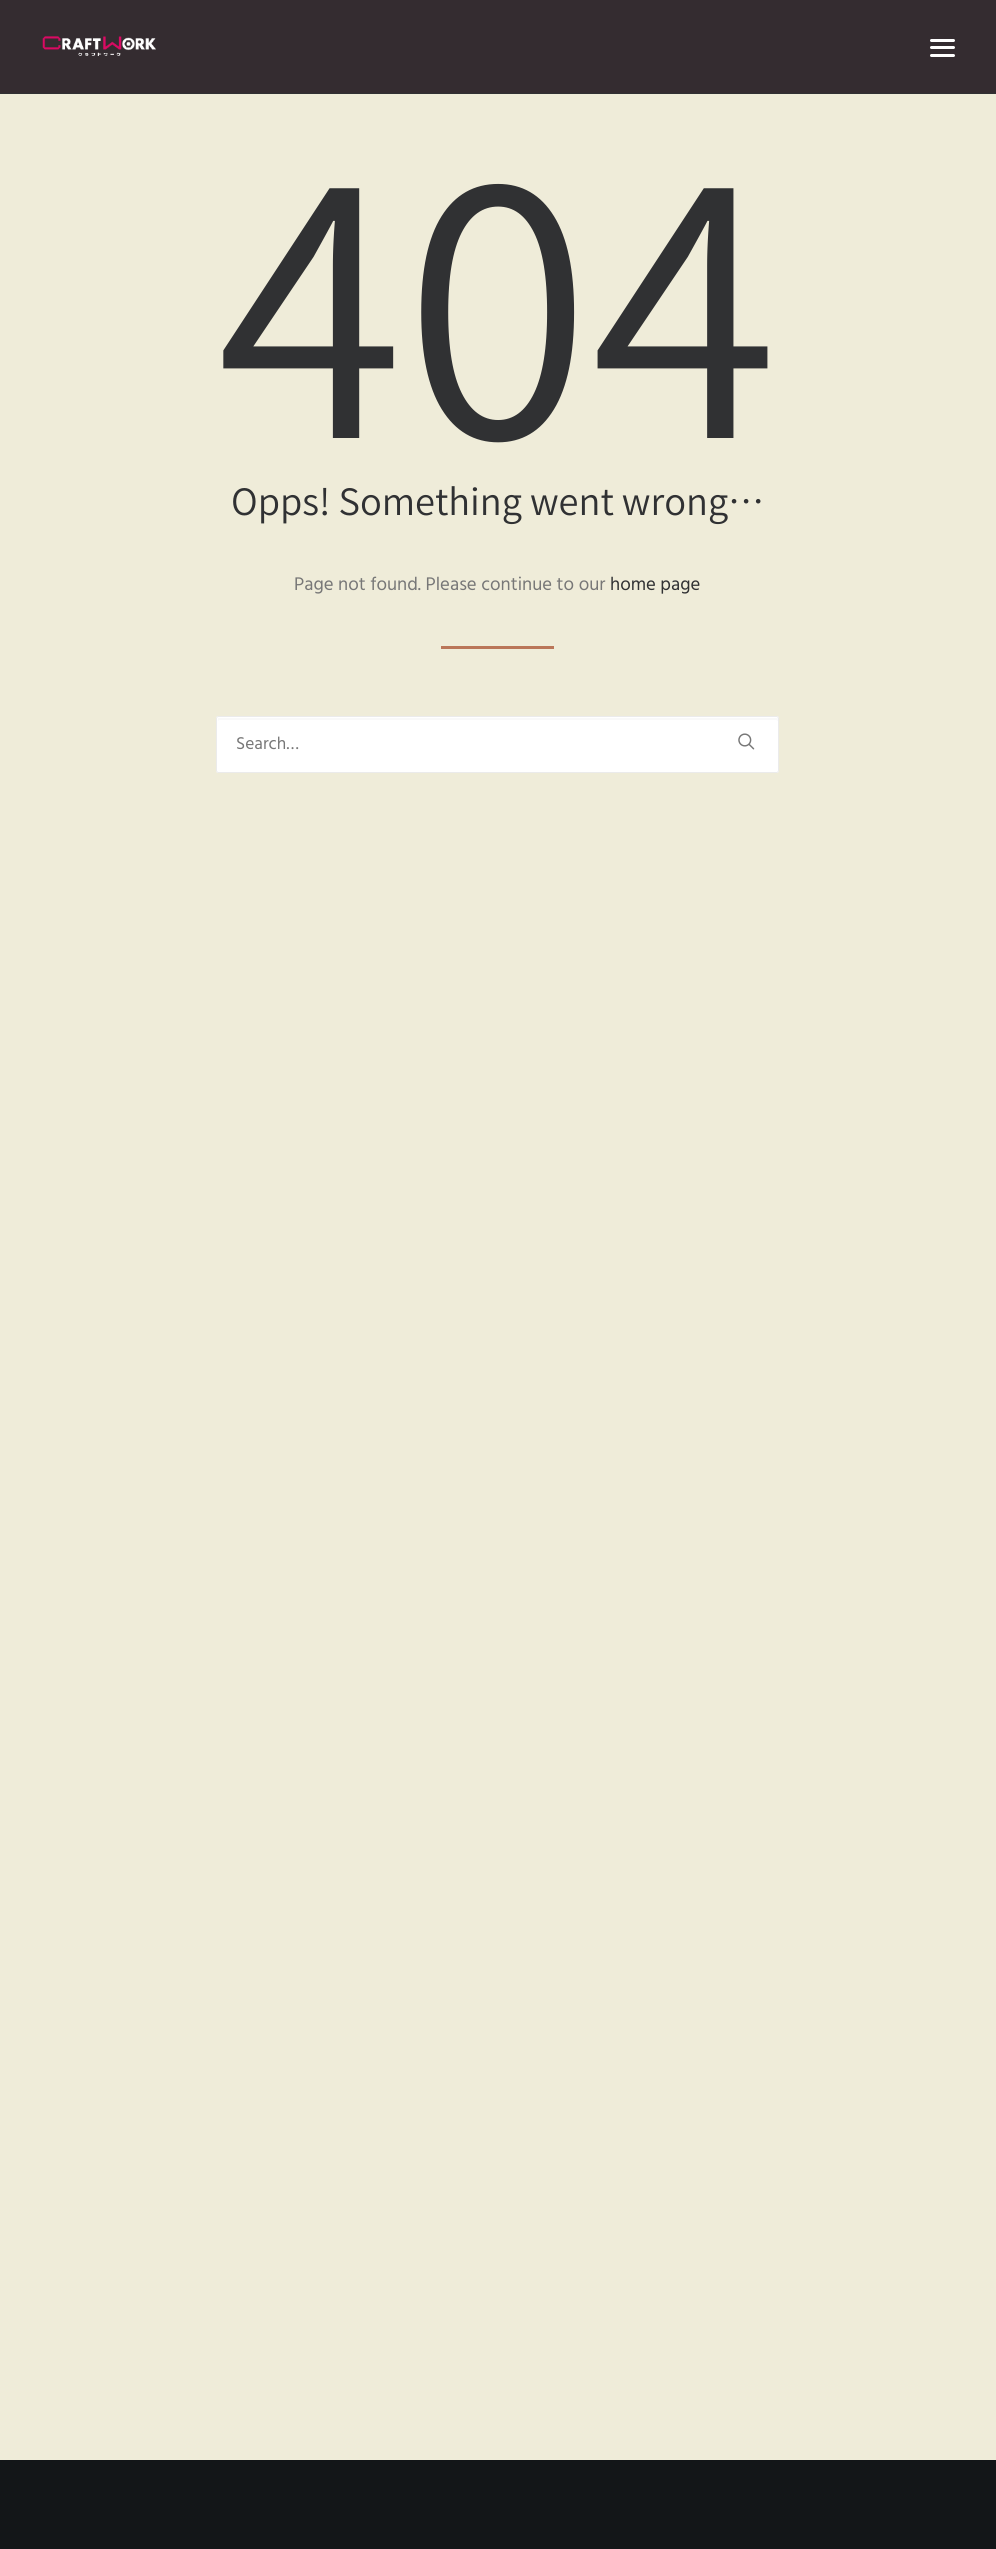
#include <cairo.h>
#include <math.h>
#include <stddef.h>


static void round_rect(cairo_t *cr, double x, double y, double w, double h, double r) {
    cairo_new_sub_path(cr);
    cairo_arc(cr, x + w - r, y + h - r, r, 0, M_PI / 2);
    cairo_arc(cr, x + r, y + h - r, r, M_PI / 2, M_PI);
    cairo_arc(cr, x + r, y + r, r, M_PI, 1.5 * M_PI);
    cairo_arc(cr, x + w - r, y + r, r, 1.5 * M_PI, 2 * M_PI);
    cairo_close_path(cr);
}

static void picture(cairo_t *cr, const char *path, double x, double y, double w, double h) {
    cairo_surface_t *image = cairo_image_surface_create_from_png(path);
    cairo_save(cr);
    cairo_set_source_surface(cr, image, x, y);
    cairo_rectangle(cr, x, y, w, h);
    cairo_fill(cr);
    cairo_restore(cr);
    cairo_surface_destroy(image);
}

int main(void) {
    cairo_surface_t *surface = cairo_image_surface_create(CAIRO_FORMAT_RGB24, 996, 2549);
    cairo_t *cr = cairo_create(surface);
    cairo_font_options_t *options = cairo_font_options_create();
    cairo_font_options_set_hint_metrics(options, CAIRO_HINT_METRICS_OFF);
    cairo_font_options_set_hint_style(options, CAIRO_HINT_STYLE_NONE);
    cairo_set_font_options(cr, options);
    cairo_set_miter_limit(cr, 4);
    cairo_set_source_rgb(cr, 0.937, 0.925, 0.851);
    cairo_paint(cr);
    cairo_set_source_rgb(cr, 0.204, 0.173, 0.188);
    cairo_rectangle(cr, 0, 0, 996, 93);
    cairo_fill(cr);
    cairo_set_source_rgb(cr, 0.188, 0.192, 0.2);
    cairo_rectangle(cr, 0, 93, 996, 1);
    cairo_fill(cr);
    picture(cr, "img1.png", 42, 36, 114, 20);
    cairo_set_source_rgb(cr, 1, 1, 1);
    round_rect(cr, 930, 46, 25, 3, 1.5);
    cairo_fill(cr);
    round_rect(cr, 930, 39, 25, 3, 1.5);
    cairo_fill(cr);
    round_rect(cr, 930, 54, 25, 3, 1.5);
    cairo_fill(cr);
    cairo_select_font_face(cr, "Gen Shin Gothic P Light", CAIRO_FONT_SLANT_NORMAL, CAIRO_FONT_WEIGHT_NORMAL);
    cairo_set_font_size(cr, 341);
    cairo_set_source_rgb(cr, 0.188, 0.192, 0.2);
    cairo_move_to(cr, 217, 438);
    cairo_show_text(cr, "404");
    cairo_set_font_size(cr, 36.25);
    cairo_move_to(cr, 231, 515);
    cairo_show_text(cr, "Opps! Something went wrong…");
    cairo_select_font_face(cr, "Hind", CAIRO_FONT_SLANT_NORMAL, CAIRO_FONT_WEIGHT_NORMAL);
    cairo_set_font_size(cr, 18.75);
    cairo_set_source_rgb(cr, 0.467, 0.467, 0.467);
    cairo_move_to(cr, 294, 590);
    cairo_show_text(cr, "Page not found. Please continue to our");
    cairo_set_source_rgb(cr, 0.188, 0.192, 0.2);
    cairo_move_to(cr, 610, 590);
    cairo_show_text(cr, "home page");
    cairo_set_source_rgb(cr, 0.729, 0.463, 0.349);
    cairo_rectangle(cr, 441, 646, 113, 3);
    cairo_fill(cr);
    cairo_set_source_rgb(cr, 1, 1, 1);
    round_rect(cr, 216, 716, 563, 57, 2.5);
    cairo_fill(cr);
    cairo_set_source_rgb(cr, 0.976, 0.976, 0.976);
    cairo_new_path(cr);
    cairo_move_to(cr, 219, 720);
    cairo_line_to(cr, 776, 720);
    cairo_line_to(cr, 778, 721);
    cairo_curve_to(cr, 778, 720, 778, 718, 777, 718);
    cairo_line_to(cr, 219, 718);
    cairo_line_to(cr, 218, 718);
    cairo_line_to(cr, 218, 721);
    cairo_close_path(cr);
    cairo_fill(cr);
    round_rect(cr, 216.5, 716.5, 562, 56, 2);
    cairo_set_source_rgb(cr, 0.918, 0.918, 0.918);
    cairo_set_line_width(cr, 1);
    cairo_stroke(cr);
    cairo_set_font_size(cr, 17.5);
    cairo_set_source_rgb(cr, 0.467, 0.467, 0.467);
    cairo_move_to(cr, 236, 749);
    cairo_show_text(cr, "Search…");
    picture(cr, "img2.png", 738, 733, 17, 17);
    cairo_set_source_rgb(cr, 0.078, 0.086, 0.094);
    cairo_rectangle(cr, 0, 2460, 996, 89);
    cairo_fill(cr);
    cairo_surface_write_to_png(surface, "page.png");
    cairo_font_options_destroy(options);
    cairo_destroy(cr);
    cairo_surface_destroy(surface);
    return 0;
}
